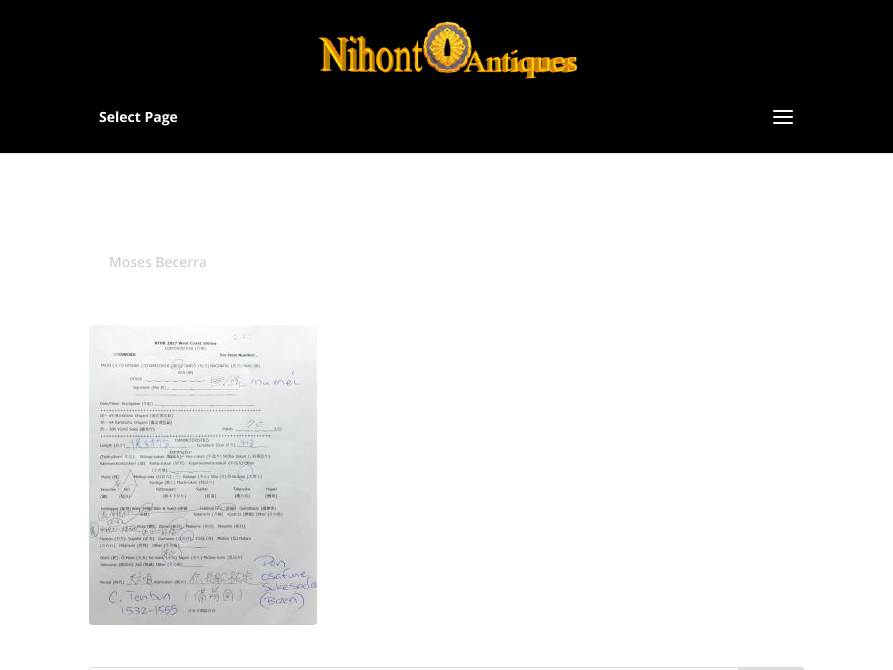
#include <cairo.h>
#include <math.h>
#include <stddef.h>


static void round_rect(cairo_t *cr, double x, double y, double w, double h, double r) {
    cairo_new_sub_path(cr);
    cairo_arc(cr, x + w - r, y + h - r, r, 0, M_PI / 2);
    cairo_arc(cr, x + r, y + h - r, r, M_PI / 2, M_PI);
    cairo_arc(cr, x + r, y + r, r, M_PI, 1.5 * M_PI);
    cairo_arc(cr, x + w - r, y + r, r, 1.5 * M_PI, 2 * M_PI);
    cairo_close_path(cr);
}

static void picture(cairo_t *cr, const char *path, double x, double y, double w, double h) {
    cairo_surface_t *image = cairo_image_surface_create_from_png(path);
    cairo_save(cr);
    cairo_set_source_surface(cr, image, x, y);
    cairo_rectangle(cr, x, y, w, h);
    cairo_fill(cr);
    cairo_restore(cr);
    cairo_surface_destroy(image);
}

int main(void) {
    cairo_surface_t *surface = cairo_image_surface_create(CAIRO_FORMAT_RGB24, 893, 670);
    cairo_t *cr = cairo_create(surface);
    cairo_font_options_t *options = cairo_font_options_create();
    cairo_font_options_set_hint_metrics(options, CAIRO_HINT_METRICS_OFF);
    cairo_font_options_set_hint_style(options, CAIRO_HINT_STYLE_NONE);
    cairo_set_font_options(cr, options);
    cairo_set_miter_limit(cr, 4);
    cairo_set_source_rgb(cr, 1, 1, 1);
    cairo_paint(cr);
    cairo_set_source_rgb(cr, 0.902, 0.902, 0.902);
    cairo_rectangle(cr, 0, 153, 893, 1);
    cairo_fill(cr);
    cairo_set_source_rgb(cr, 0, 0, 0);
    cairo_rectangle(cr, 0, 0, 893, 153);
    cairo_fill(cr);
    picture(cr, "img1.png", 318, 21, 260, 58);
    cairo_select_font_face(cr, "Open Sans", CAIRO_FONT_SLANT_NORMAL, CAIRO_FONT_WEIGHT_BOLD);
    cairo_set_font_size(cr, 14);
    cairo_set_source_rgb(cr, 1, 1, 1);
    cairo_move_to(cr, 99, 122);
    cairo_show_text(cr, "Select Page");
    picture(cr, "img2.png", 773, 110, 20, 14);
    cairo_select_font_face(cr, "Open Sans Medium", CAIRO_FONT_SLANT_NORMAL, CAIRO_FONT_WEIGHT_NORMAL);
    cairo_set_source_rgb(cr, 0.8, 0.8, 0.8);
    cairo_move_to(cr, 109, 267);
    cairo_show_text(cr, "Moses Becerra");
    picture(cr, "img3.png", 89, 325, 228, 300);
    round_rect(cr, 89.5, 667.5, 714, 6, 2.5);
    cairo_set_source_rgb(cr, 0.867, 0.867, 0.867);
    cairo_set_line_width(cr, 1);
    cairo_stroke(cr);
    cairo_new_path(cr);
    cairo_move_to(cr, 738.5, 667.5);
    cairo_line_to(cr, 801, 667.5);
    cairo_curve_to(cr, 802.5, 667.5, 803.5, 668.5, 803.5, 670);
    cairo_line_to(cr, 803.5, 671);
    cairo_curve_to(cr, 803.5, 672.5, 802.5, 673.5, 801, 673.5);
    cairo_line_to(cr, 738.5, 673.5);
    cairo_close_path(cr);
    cairo_fill_preserve(cr);
    cairo_stroke(cr);
    cairo_surface_write_to_png(surface, "page.png");
    cairo_font_options_destroy(options);
    cairo_destroy(cr);
    cairo_surface_destroy(surface);
    return 0;
}
